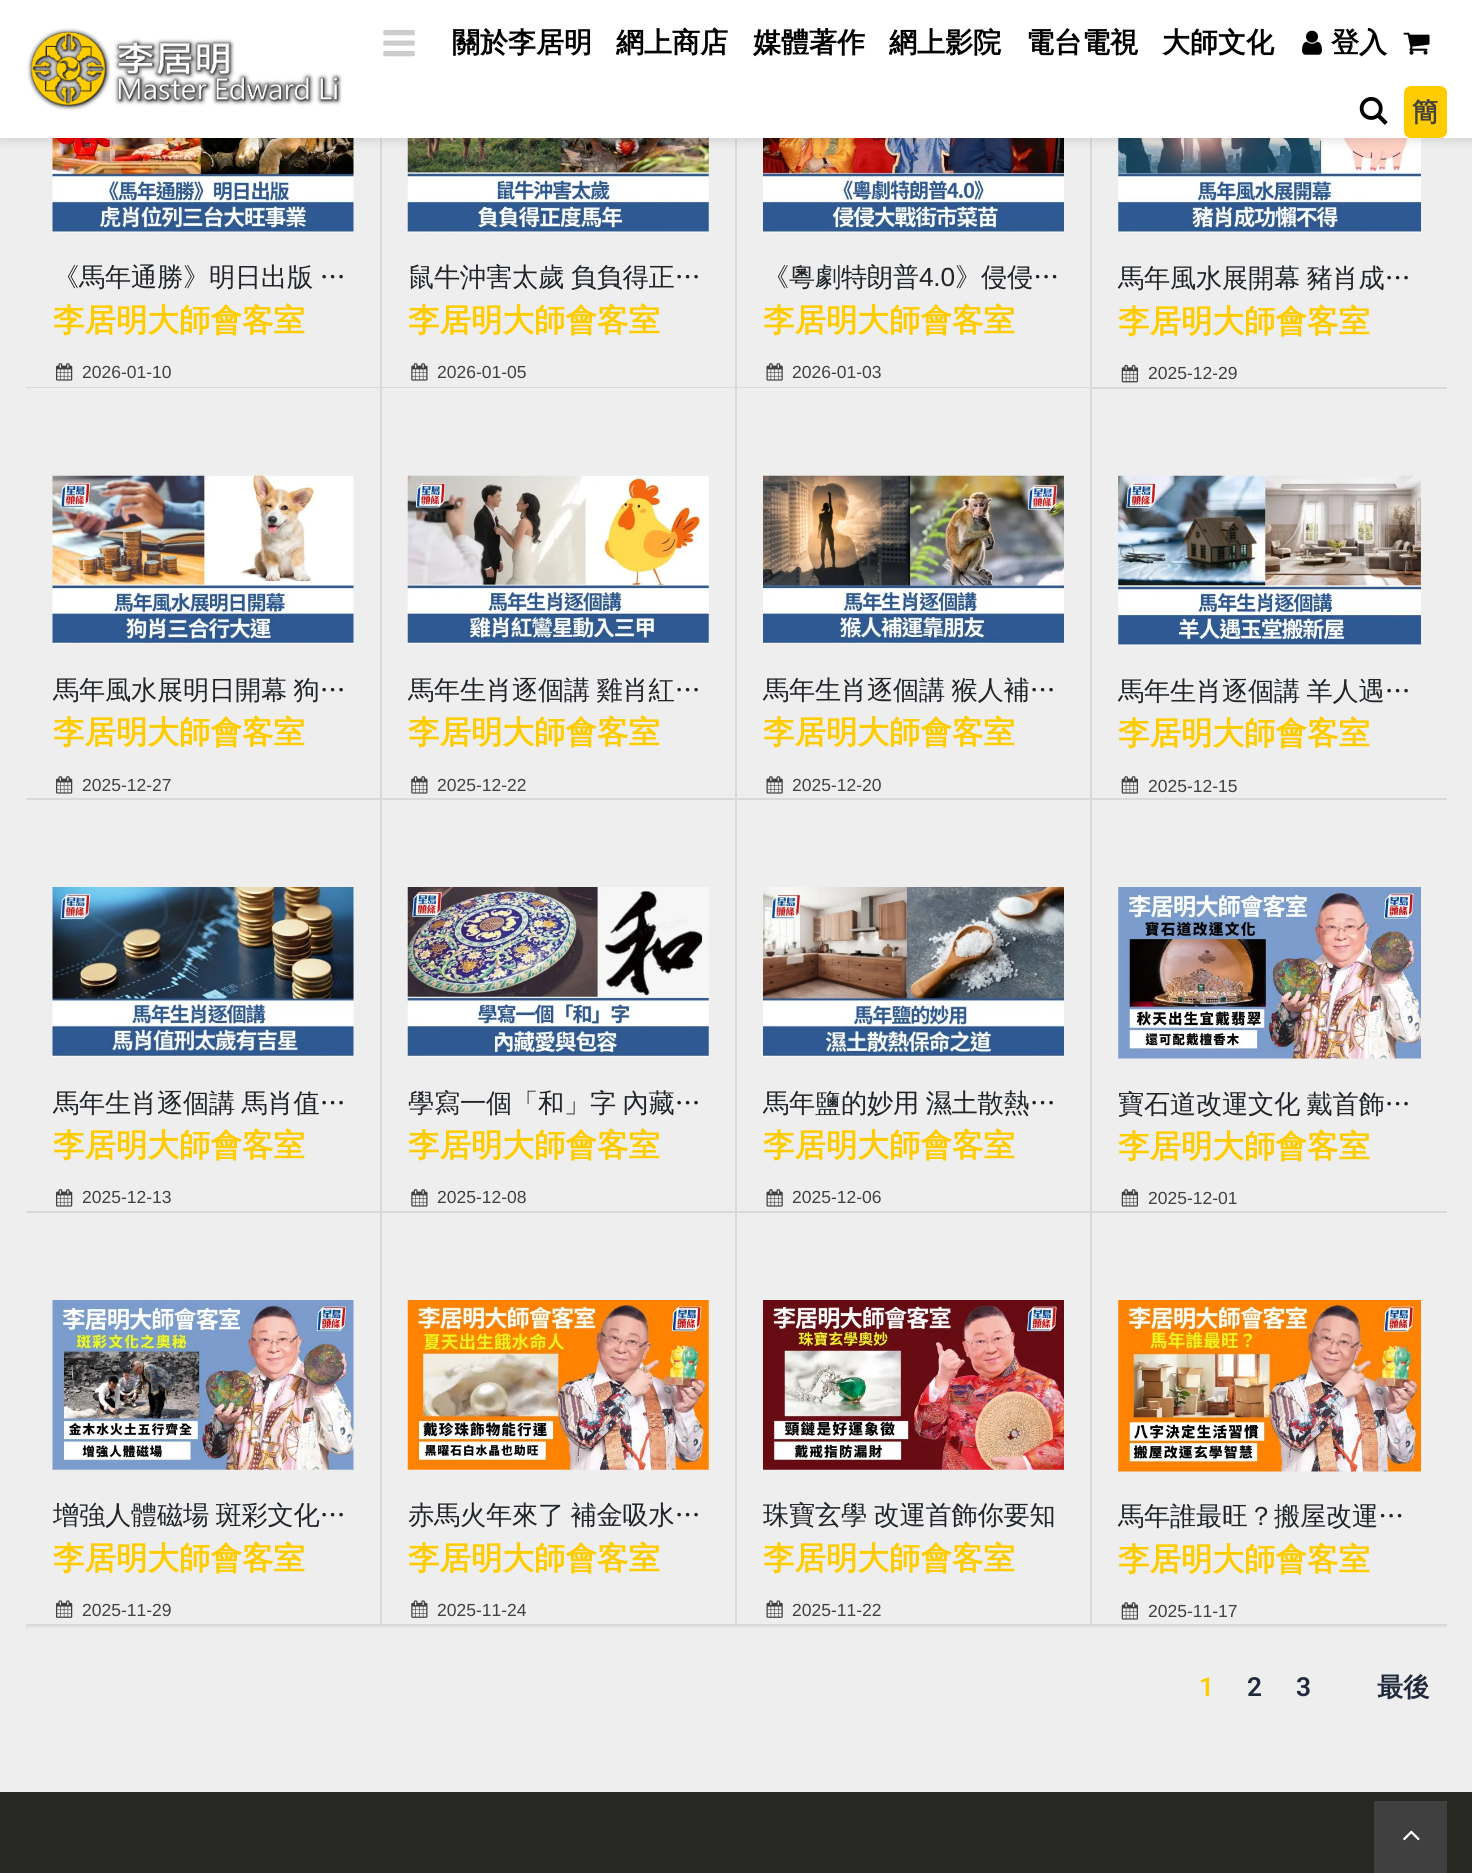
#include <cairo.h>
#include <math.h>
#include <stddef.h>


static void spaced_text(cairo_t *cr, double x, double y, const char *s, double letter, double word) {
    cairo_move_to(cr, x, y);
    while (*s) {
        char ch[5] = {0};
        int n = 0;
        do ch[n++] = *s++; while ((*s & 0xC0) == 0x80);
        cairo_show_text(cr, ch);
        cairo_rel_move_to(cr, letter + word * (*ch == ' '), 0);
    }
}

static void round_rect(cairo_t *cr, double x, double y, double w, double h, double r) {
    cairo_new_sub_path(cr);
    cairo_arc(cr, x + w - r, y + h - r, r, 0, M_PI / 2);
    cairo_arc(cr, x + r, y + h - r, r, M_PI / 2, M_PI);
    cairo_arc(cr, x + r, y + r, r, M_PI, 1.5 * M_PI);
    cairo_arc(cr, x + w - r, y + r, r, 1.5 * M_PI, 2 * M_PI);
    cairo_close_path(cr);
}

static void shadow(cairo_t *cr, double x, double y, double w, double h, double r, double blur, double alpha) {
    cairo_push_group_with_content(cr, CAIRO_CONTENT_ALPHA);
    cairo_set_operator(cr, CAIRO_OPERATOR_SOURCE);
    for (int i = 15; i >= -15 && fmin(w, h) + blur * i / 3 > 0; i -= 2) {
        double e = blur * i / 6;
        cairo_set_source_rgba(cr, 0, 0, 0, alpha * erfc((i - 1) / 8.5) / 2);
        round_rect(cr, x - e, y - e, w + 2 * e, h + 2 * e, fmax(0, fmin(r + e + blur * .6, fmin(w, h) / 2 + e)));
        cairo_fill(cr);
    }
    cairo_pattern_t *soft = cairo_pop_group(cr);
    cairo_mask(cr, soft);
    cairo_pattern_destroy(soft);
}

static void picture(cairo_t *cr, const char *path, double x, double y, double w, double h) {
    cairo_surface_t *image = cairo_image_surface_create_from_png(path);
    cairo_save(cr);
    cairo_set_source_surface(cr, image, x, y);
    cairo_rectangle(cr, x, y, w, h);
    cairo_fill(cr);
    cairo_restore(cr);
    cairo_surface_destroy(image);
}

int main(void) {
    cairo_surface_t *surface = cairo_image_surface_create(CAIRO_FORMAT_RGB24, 1472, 1873);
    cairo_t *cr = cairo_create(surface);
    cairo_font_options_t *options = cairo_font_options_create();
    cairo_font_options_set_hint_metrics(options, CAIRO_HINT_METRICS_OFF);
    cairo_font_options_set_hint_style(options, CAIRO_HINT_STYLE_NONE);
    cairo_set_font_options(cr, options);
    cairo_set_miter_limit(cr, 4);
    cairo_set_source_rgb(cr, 0.933, 0.933, 0.933);
    cairo_paint(cr);
    cairo_set_source_rgb(cr, 0.851, 0.851, 0.851);
    cairo_new_path(cr);
    cairo_move_to(cr, 382, -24);
    cairo_line_to(cr, 382, 388);
    cairo_line_to(cr, 380, 387);
    cairo_line_to(cr, 380, -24);
    cairo_close_path(cr);
    cairo_fill(cr);
    picture(cr, "img6.png", 52, 138, 302, 95);
    cairo_new_path(cr);
    cairo_move_to(cr, 737, -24);
    cairo_line_to(cr, 737, 388);
    cairo_line_to(cr, 735, 387);
    cairo_line_to(cr, 735, -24);
    cairo_close_path(cr);
    cairo_fill(cr);
    picture(cr, "img8.png", 407, 138, 302, 95);
    cairo_new_path(cr);
    cairo_move_to(cr, 1092, -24);
    cairo_line_to(cr, 1092, 388);
    cairo_line_to(cr, 1090, 387);
    cairo_line_to(cr, 1090, -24);
    cairo_close_path(cr);
    cairo_fill(cr);
    picture(cr, "img10.png", 763, 138, 301, 95);
    picture(cr, "img12.png", 1118, 138, 303, 95);
    cairo_set_source_rgb(cr, 0, 0, 0);
    shadow(cr, 0, 4, 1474, 138, 0, 4.5, 0.1);
    cairo_set_source_rgb(cr, 1, 1, 1);
    cairo_rectangle(cr, 0, 0, 1472, 138);
    cairo_fill(cr);
    picture(cr, "img1.png", 27, 28, 315, 83);
    picture(cr, "img2.png", 383, 30, 32, 27);
    cairo_select_font_face(cr, "WenQuanYi Zen Hei", CAIRO_FONT_SLANT_NORMAL, CAIRO_FONT_WEIGHT_BOLD);
    cairo_set_font_size(cr, 28);
    cairo_set_source_rgb(cr, 0, 0, 0);
    cairo_move_to(cr, 452, 52);
    cairo_show_text(cr, "關於李居明");
    cairo_move_to(cr, 616, 52);
    cairo_show_text(cr, "網上商店");
    cairo_move_to(cr, 753, 52);
    cairo_show_text(cr, "媒體著作");
    cairo_move_to(cr, 889, 52);
    cairo_show_text(cr, "網上影院");
    cairo_move_to(cr, 1026, 52);
    cairo_show_text(cr, "電台電視");
    cairo_move_to(cr, 1162, 52);
    cairo_show_text(cr, "大師文化");
    picture(cr, "img3.png", 1302, 30, 20, 25);
    cairo_move_to(cr, 1331, 52);
    cairo_show_text(cr, "登入");
    picture(cr, "img4.png", 1403, 32, 27, 23);
    picture(cr, "img5.png", 1359, 97, 29, 28);
    cairo_set_source_rgb(cr, 1, 0.8, 0);
    round_rect(cr, 1404, 86, 43, 52, 7);
    cairo_fill(cr);
    cairo_set_font_size(cr, 26.25);
    cairo_set_source_rgb(cr, 0.255, 0.255, 0.255);
    cairo_move_to(cr, 1412, 121);
    cairo_show_text(cr, "簡");
    cairo_set_source_rgba(cr, 0, 0, 0, 0.09);
    cairo_new_path(cr);
    cairo_move_to(cr, 382, 388);
    cairo_line_to(cr, 26, 388);
    cairo_line_to(cr, 26, 387);
    cairo_line_to(cr, 380, 387);
    cairo_close_path(cr);
    cairo_fill(cr);
    cairo_select_font_face(cr, "WenQuanYi Zen Hei Medium", CAIRO_FONT_SLANT_NORMAL, CAIRO_FONT_WEIGHT_NORMAL);
    cairo_set_source_rgb(cr, 0.129, 0.145, 0.161);
    spaced_text(cr, 53, 286, "《馬年通勝》明日出版 …", -0.25, -1);
    cairo_select_font_face(cr, "WenQuanYi Zen Hei", CAIRO_FONT_SLANT_NORMAL, CAIRO_FONT_WEIGHT_BOLD);
    cairo_set_font_size(cr, 31.5);
    cairo_set_source_rgb(cr, 1, 0.8, 0);
    cairo_move_to(cr, 53, 331);
    cairo_show_text(cr, "李居明大師會客室");
    picture(cr, "img7.png", 56, 363, 17, 18);
    cairo_select_font_face(cr, "Liberation Sans", CAIRO_FONT_SLANT_NORMAL, CAIRO_FONT_WEIGHT_NORMAL);
    cairo_set_font_size(cr, 17.5);
    cairo_set_source_rgb(cr, 0.255, 0.255, 0.255);
    cairo_move_to(cr, 82, 378);
    cairo_show_text(cr, "2026-01-10");
    cairo_set_source_rgba(cr, 0, 0, 0, 0.09);
    cairo_new_path(cr);
    cairo_move_to(cr, 737, 388);
    cairo_line_to(cr, 382, 388);
    cairo_line_to(cr, 382, 387);
    cairo_line_to(cr, 735, 387);
    cairo_close_path(cr);
    cairo_fill(cr);
    cairo_select_font_face(cr, "WenQuanYi Zen Hei Medium", CAIRO_FONT_SLANT_NORMAL, CAIRO_FONT_WEIGHT_NORMAL);
    cairo_set_font_size(cr, 26.25);
    cairo_set_source_rgb(cr, 0.129, 0.145, 0.161);
    spaced_text(cr, 408, 286, "鼠牛沖害太歲 負負得正…", -0.25, -1);
    cairo_select_font_face(cr, "WenQuanYi Zen Hei", CAIRO_FONT_SLANT_NORMAL, CAIRO_FONT_WEIGHT_BOLD);
    cairo_set_font_size(cr, 31.5);
    cairo_set_source_rgb(cr, 1, 0.8, 0);
    cairo_move_to(cr, 408, 331);
    cairo_show_text(cr, "李居明大師會客室");
    picture(cr, "img9.png", 411, 363, 17, 18);
    cairo_select_font_face(cr, "Liberation Sans", CAIRO_FONT_SLANT_NORMAL, CAIRO_FONT_WEIGHT_NORMAL);
    cairo_set_font_size(cr, 17.5);
    cairo_set_source_rgb(cr, 0.255, 0.255, 0.255);
    cairo_move_to(cr, 437, 378);
    cairo_show_text(cr, "2026-01-05");
    cairo_set_source_rgba(cr, 0, 0, 0, 0.09);
    cairo_new_path(cr);
    cairo_move_to(cr, 1092, 388);
    cairo_line_to(cr, 737, 388);
    cairo_line_to(cr, 737, 387);
    cairo_line_to(cr, 1090, 387);
    cairo_close_path(cr);
    cairo_fill(cr);
    cairo_select_font_face(cr, "WenQuanYi Zen Hei Medium", CAIRO_FONT_SLANT_NORMAL, CAIRO_FONT_WEIGHT_NORMAL);
    cairo_set_font_size(cr, 26.25);
    cairo_set_source_rgb(cr, 0.129, 0.145, 0.161);
    spaced_text(cr, 763, 286, "《粵劇特朗普", -0.25, 0);
    cairo_select_font_face(cr, "Liberation Sans", CAIRO_FONT_SLANT_NORMAL, CAIRO_FONT_WEIGHT_NORMAL);
    spaced_text(cr, 919, 286, "4.0", -0.25, 0);
    cairo_select_font_face(cr, "WenQuanYi Zen Hei Medium", CAIRO_FONT_SLANT_NORMAL, CAIRO_FONT_WEIGHT_NORMAL);
    spaced_text(cr, 955, 286, "》侵侵…", -0.25, 0);
    cairo_select_font_face(cr, "WenQuanYi Zen Hei", CAIRO_FONT_SLANT_NORMAL, CAIRO_FONT_WEIGHT_BOLD);
    cairo_set_font_size(cr, 31.5);
    cairo_set_source_rgb(cr, 1, 0.8, 0);
    cairo_move_to(cr, 763, 331);
    cairo_show_text(cr, "李居明大師會客室");
    picture(cr, "img11.png", 766, 363, 17, 18);
    cairo_select_font_face(cr, "Liberation Sans", CAIRO_FONT_SLANT_NORMAL, CAIRO_FONT_WEIGHT_NORMAL);
    cairo_set_font_size(cr, 17.5);
    cairo_set_source_rgb(cr, 0.255, 0.255, 0.255);
    cairo_move_to(cr, 792, 378);
    cairo_show_text(cr, "2026-01-03");
    cairo_set_source_rgb(cr, 0.851, 0.851, 0.851);
    cairo_rectangle(cr, 1092, 387, 355, 2);
    cairo_fill(cr);
    cairo_select_font_face(cr, "WenQuanYi Zen Hei Medium", CAIRO_FONT_SLANT_NORMAL, CAIRO_FONT_WEIGHT_NORMAL);
    cairo_set_font_size(cr, 26.25);
    cairo_set_source_rgb(cr, 0.129, 0.145, 0.161);
    spaced_text(cr, 1118, 287, "馬年風水展開幕 豬肖成…", -0.25, -1);
    cairo_select_font_face(cr, "WenQuanYi Zen Hei", CAIRO_FONT_SLANT_NORMAL, CAIRO_FONT_WEIGHT_BOLD);
    cairo_set_font_size(cr, 31.5);
    cairo_set_source_rgb(cr, 1, 0.8, 0);
    cairo_move_to(cr, 1118, 332);
    cairo_show_text(cr, "李居明大師會客室");
    picture(cr, "img13.png", 1121, 364, 17, 19);
    cairo_select_font_face(cr, "Liberation Sans", CAIRO_FONT_SLANT_NORMAL, CAIRO_FONT_WEIGHT_NORMAL);
    cairo_set_font_size(cr, 17.5);
    cairo_set_source_rgb(cr, 0.255, 0.255, 0.255);
    cairo_move_to(cr, 1148, 379);
    cairo_show_text(cr, "2025-12-29");
    cairo_set_source_rgb(cr, 0.851, 0.851, 0.851);
    cairo_new_path(cr);
    cairo_move_to(cr, 382, 388);
    cairo_line_to(cr, 382, 800);
    cairo_line_to(cr, 380, 798);
    cairo_line_to(cr, 380, 388);
    cairo_close_path(cr);
    cairo_fill(cr);
    cairo_set_source_rgba(cr, 0, 0, 0, 0.09);
    cairo_new_path(cr);
    cairo_move_to(cr, 382, 800);
    cairo_line_to(cr, 26, 800);
    cairo_line_to(cr, 26, 798);
    cairo_line_to(cr, 380, 798);
    cairo_close_path(cr);
    cairo_fill(cr);
    picture(cr, "img14.png", 52, 475, 302, 169);
    cairo_select_font_face(cr, "WenQuanYi Zen Hei Medium", CAIRO_FONT_SLANT_NORMAL, CAIRO_FONT_WEIGHT_NORMAL);
    cairo_set_font_size(cr, 26.25);
    cairo_set_source_rgb(cr, 0.129, 0.145, 0.161);
    spaced_text(cr, 53, 699, "馬年風水展明日開幕 狗…", -0.25, -1);
    cairo_select_font_face(cr, "WenQuanYi Zen Hei", CAIRO_FONT_SLANT_NORMAL, CAIRO_FONT_WEIGHT_BOLD);
    cairo_set_font_size(cr, 31.5);
    cairo_set_source_rgb(cr, 1, 0.8, 0);
    cairo_move_to(cr, 53, 743);
    cairo_show_text(cr, "李居明大師會客室");
    picture(cr, "img7.png", 56, 776, 17, 18);
    cairo_select_font_face(cr, "Liberation Sans", CAIRO_FONT_SLANT_NORMAL, CAIRO_FONT_WEIGHT_NORMAL);
    cairo_set_font_size(cr, 17.5);
    cairo_set_source_rgb(cr, 0.255, 0.255, 0.255);
    cairo_move_to(cr, 82, 791);
    cairo_show_text(cr, "2025-12-27");
    cairo_set_source_rgb(cr, 0.851, 0.851, 0.851);
    cairo_new_path(cr);
    cairo_move_to(cr, 737, 388);
    cairo_line_to(cr, 737, 800);
    cairo_line_to(cr, 735, 798);
    cairo_line_to(cr, 735, 388);
    cairo_close_path(cr);
    cairo_fill(cr);
    cairo_set_source_rgba(cr, 0, 0, 0, 0.09);
    cairo_new_path(cr);
    cairo_move_to(cr, 737, 800);
    cairo_line_to(cr, 382, 800);
    cairo_line_to(cr, 382, 798);
    cairo_line_to(cr, 735, 798);
    cairo_close_path(cr);
    cairo_fill(cr);
    picture(cr, "img15.png", 407, 475, 302, 169);
    cairo_select_font_face(cr, "WenQuanYi Zen Hei Medium", CAIRO_FONT_SLANT_NORMAL, CAIRO_FONT_WEIGHT_NORMAL);
    cairo_set_font_size(cr, 26.25);
    cairo_set_source_rgb(cr, 0.129, 0.145, 0.161);
    spaced_text(cr, 408, 699, "馬年生肖逐個講 雞肖紅…", -0.25, -1);
    cairo_select_font_face(cr, "WenQuanYi Zen Hei", CAIRO_FONT_SLANT_NORMAL, CAIRO_FONT_WEIGHT_BOLD);
    cairo_set_font_size(cr, 31.5);
    cairo_set_source_rgb(cr, 1, 0.8, 0);
    cairo_move_to(cr, 408, 743);
    cairo_show_text(cr, "李居明大師會客室");
    picture(cr, "img9.png", 411, 776, 17, 18);
    cairo_select_font_face(cr, "Liberation Sans", CAIRO_FONT_SLANT_NORMAL, CAIRO_FONT_WEIGHT_NORMAL);
    cairo_set_font_size(cr, 17.5);
    cairo_set_source_rgb(cr, 0.255, 0.255, 0.255);
    cairo_move_to(cr, 437, 791);
    cairo_show_text(cr, "2025-12-22");
    cairo_set_source_rgb(cr, 0.851, 0.851, 0.851);
    cairo_new_path(cr);
    cairo_move_to(cr, 1092, 388);
    cairo_line_to(cr, 1092, 800);
    cairo_line_to(cr, 1090, 798);
    cairo_line_to(cr, 1090, 388);
    cairo_close_path(cr);
    cairo_fill(cr);
    cairo_set_source_rgba(cr, 0, 0, 0, 0.09);
    cairo_new_path(cr);
    cairo_move_to(cr, 1092, 800);
    cairo_line_to(cr, 737, 800);
    cairo_line_to(cr, 737, 798);
    cairo_line_to(cr, 1090, 798);
    cairo_close_path(cr);
    cairo_fill(cr);
    picture(cr, "img16.png", 763, 475, 301, 169);
    cairo_select_font_face(cr, "WenQuanYi Zen Hei Medium", CAIRO_FONT_SLANT_NORMAL, CAIRO_FONT_WEIGHT_NORMAL);
    cairo_set_font_size(cr, 26.25);
    cairo_set_source_rgb(cr, 0.129, 0.145, 0.161);
    spaced_text(cr, 763, 699, "馬年生肖逐個講 猴人補…", -0.25, -1);
    cairo_select_font_face(cr, "WenQuanYi Zen Hei", CAIRO_FONT_SLANT_NORMAL, CAIRO_FONT_WEIGHT_BOLD);
    cairo_set_font_size(cr, 31.5);
    cairo_set_source_rgb(cr, 1, 0.8, 0);
    cairo_move_to(cr, 763, 743);
    cairo_show_text(cr, "李居明大師會客室");
    picture(cr, "img11.png", 766, 776, 17, 18);
    cairo_select_font_face(cr, "Liberation Sans", CAIRO_FONT_SLANT_NORMAL, CAIRO_FONT_WEIGHT_NORMAL);
    cairo_set_font_size(cr, 17.5);
    cairo_set_source_rgb(cr, 0.255, 0.255, 0.255);
    cairo_move_to(cr, 792, 791);
    cairo_show_text(cr, "2025-12-20");
    cairo_set_source_rgb(cr, 0.851, 0.851, 0.851);
    cairo_rectangle(cr, 1092, 798, 355, 2);
    cairo_fill(cr);
    picture(cr, "img17.png", 1118, 475, 303, 171);
    cairo_select_font_face(cr, "WenQuanYi Zen Hei Medium", CAIRO_FONT_SLANT_NORMAL, CAIRO_FONT_WEIGHT_NORMAL);
    cairo_set_font_size(cr, 26.25);
    cairo_set_source_rgb(cr, 0.129, 0.145, 0.161);
    spaced_text(cr, 1118, 700, "馬年生肖逐個講 羊人遇…", -0.25, -1);
    cairo_select_font_face(cr, "WenQuanYi Zen Hei", CAIRO_FONT_SLANT_NORMAL, CAIRO_FONT_WEIGHT_BOLD);
    cairo_set_font_size(cr, 31.5);
    cairo_set_source_rgb(cr, 1, 0.8, 0);
    cairo_move_to(cr, 1118, 744);
    cairo_show_text(cr, "李居明大師會客室");
    picture(cr, "img18.png", 1121, 776, 17, 18);
    cairo_select_font_face(cr, "Liberation Sans", CAIRO_FONT_SLANT_NORMAL, CAIRO_FONT_WEIGHT_NORMAL);
    cairo_set_font_size(cr, 17.5);
    cairo_set_source_rgb(cr, 0.255, 0.255, 0.255);
    cairo_move_to(cr, 1148, 792);
    cairo_show_text(cr, "2025-12-15");
    cairo_set_source_rgb(cr, 0.851, 0.851, 0.851);
    cairo_new_path(cr);
    cairo_move_to(cr, 382, 800);
    cairo_line_to(cr, 382, 1213);
    cairo_line_to(cr, 380, 1211);
    cairo_line_to(cr, 380, 800);
    cairo_close_path(cr);
    cairo_fill(cr);
    cairo_set_source_rgba(cr, 0, 0, 0, 0.09);
    cairo_new_path(cr);
    cairo_move_to(cr, 382, 1213);
    cairo_line_to(cr, 26, 1213);
    cairo_line_to(cr, 26, 1211);
    cairo_line_to(cr, 380, 1211);
    cairo_close_path(cr);
    cairo_fill(cr);
    picture(cr, "img19.png", 52, 887, 302, 170);
    cairo_select_font_face(cr, "WenQuanYi Zen Hei Medium", CAIRO_FONT_SLANT_NORMAL, CAIRO_FONT_WEIGHT_NORMAL);
    cairo_set_font_size(cr, 26.25);
    cairo_set_source_rgb(cr, 0.129, 0.145, 0.161);
    spaced_text(cr, 53, 1112, "馬年生肖逐個講 馬肖值…", -0.25, -1);
    cairo_select_font_face(cr, "WenQuanYi Zen Hei", CAIRO_FONT_SLANT_NORMAL, CAIRO_FONT_WEIGHT_BOLD);
    cairo_set_font_size(cr, 31.5);
    cairo_set_source_rgb(cr, 1, 0.8, 0);
    cairo_move_to(cr, 53, 1156);
    cairo_show_text(cr, "李居明大師會客室");
    picture(cr, "img7.png", 56, 1189, 17, 18);
    cairo_select_font_face(cr, "Liberation Sans", CAIRO_FONT_SLANT_NORMAL, CAIRO_FONT_WEIGHT_NORMAL);
    cairo_set_font_size(cr, 17.5);
    cairo_set_source_rgb(cr, 0.255, 0.255, 0.255);
    cairo_move_to(cr, 82, 1203);
    cairo_show_text(cr, "2025-12-13");
    cairo_set_source_rgb(cr, 0.851, 0.851, 0.851);
    cairo_new_path(cr);
    cairo_move_to(cr, 737, 800);
    cairo_line_to(cr, 737, 1213);
    cairo_line_to(cr, 735, 1211);
    cairo_line_to(cr, 735, 800);
    cairo_close_path(cr);
    cairo_fill(cr);
    cairo_set_source_rgba(cr, 0, 0, 0, 0.09);
    cairo_new_path(cr);
    cairo_move_to(cr, 737, 1213);
    cairo_line_to(cr, 382, 1213);
    cairo_line_to(cr, 382, 1211);
    cairo_line_to(cr, 735, 1211);
    cairo_close_path(cr);
    cairo_fill(cr);
    picture(cr, "img20.png", 407, 887, 302, 170);
    cairo_select_font_face(cr, "WenQuanYi Zen Hei Medium", CAIRO_FONT_SLANT_NORMAL, CAIRO_FONT_WEIGHT_NORMAL);
    cairo_set_font_size(cr, 26.25);
    cairo_set_source_rgb(cr, 0.129, 0.145, 0.161);
    spaced_text(cr, 408, 1112, "學寫一個「和」字 內藏…", -0.25, -1);
    cairo_select_font_face(cr, "WenQuanYi Zen Hei", CAIRO_FONT_SLANT_NORMAL, CAIRO_FONT_WEIGHT_BOLD);
    cairo_set_font_size(cr, 31.5);
    cairo_set_source_rgb(cr, 1, 0.8, 0);
    cairo_move_to(cr, 408, 1156);
    cairo_show_text(cr, "李居明大師會客室");
    picture(cr, "img9.png", 411, 1189, 17, 18);
    cairo_select_font_face(cr, "Liberation Sans", CAIRO_FONT_SLANT_NORMAL, CAIRO_FONT_WEIGHT_NORMAL);
    cairo_set_font_size(cr, 17.5);
    cairo_set_source_rgb(cr, 0.255, 0.255, 0.255);
    cairo_move_to(cr, 437, 1203);
    cairo_show_text(cr, "2025-12-08");
    cairo_set_source_rgb(cr, 0.851, 0.851, 0.851);
    cairo_new_path(cr);
    cairo_move_to(cr, 1092, 800);
    cairo_line_to(cr, 1092, 1213);
    cairo_line_to(cr, 1090, 1211);
    cairo_line_to(cr, 1090, 800);
    cairo_close_path(cr);
    cairo_fill(cr);
    cairo_set_source_rgba(cr, 0, 0, 0, 0.09);
    cairo_new_path(cr);
    cairo_move_to(cr, 1092, 1213);
    cairo_line_to(cr, 737, 1213);
    cairo_line_to(cr, 737, 1211);
    cairo_line_to(cr, 1090, 1211);
    cairo_close_path(cr);
    cairo_fill(cr);
    picture(cr, "img21.png", 763, 887, 301, 170);
    cairo_select_font_face(cr, "WenQuanYi Zen Hei Medium", CAIRO_FONT_SLANT_NORMAL, CAIRO_FONT_WEIGHT_NORMAL);
    cairo_set_font_size(cr, 26.25);
    cairo_set_source_rgb(cr, 0.129, 0.145, 0.161);
    spaced_text(cr, 763, 1112, "馬年鹽的妙用 濕土散熱…", -0.25, -1);
    cairo_select_font_face(cr, "WenQuanYi Zen Hei", CAIRO_FONT_SLANT_NORMAL, CAIRO_FONT_WEIGHT_BOLD);
    cairo_set_font_size(cr, 31.5);
    cairo_set_source_rgb(cr, 1, 0.8, 0);
    cairo_move_to(cr, 763, 1156);
    cairo_show_text(cr, "李居明大師會客室");
    picture(cr, "img11.png", 766, 1189, 17, 18);
    cairo_select_font_face(cr, "Liberation Sans", CAIRO_FONT_SLANT_NORMAL, CAIRO_FONT_WEIGHT_NORMAL);
    cairo_set_font_size(cr, 17.5);
    cairo_set_source_rgb(cr, 0.255, 0.255, 0.255);
    cairo_move_to(cr, 792, 1203);
    cairo_show_text(cr, "2025-12-06");
    cairo_set_source_rgb(cr, 0.851, 0.851, 0.851);
    cairo_rectangle(cr, 1092, 1211, 355, 2);
    cairo_fill(cr);
    picture(cr, "img22.png", 1118, 887, 303, 172);
    cairo_select_font_face(cr, "WenQuanYi Zen Hei Medium", CAIRO_FONT_SLANT_NORMAL, CAIRO_FONT_WEIGHT_NORMAL);
    cairo_set_font_size(cr, 26.25);
    cairo_set_source_rgb(cr, 0.129, 0.145, 0.161);
    spaced_text(cr, 1118, 1113, "寶石道改運文化 戴首飾…", -0.25, -1);
    cairo_select_font_face(cr, "WenQuanYi Zen Hei", CAIRO_FONT_SLANT_NORMAL, CAIRO_FONT_WEIGHT_BOLD);
    cairo_set_font_size(cr, 31.5);
    cairo_set_source_rgb(cr, 1, 0.8, 0);
    cairo_move_to(cr, 1118, 1157);
    cairo_show_text(cr, "李居明大師會客室");
    picture(cr, "img18.png", 1121, 1189, 17, 18);
    cairo_select_font_face(cr, "Liberation Sans", CAIRO_FONT_SLANT_NORMAL, CAIRO_FONT_WEIGHT_NORMAL);
    cairo_set_font_size(cr, 17.5);
    cairo_set_source_rgb(cr, 0.255, 0.255, 0.255);
    cairo_move_to(cr, 1148, 1204);
    cairo_show_text(cr, "2025-12-01");
    cairo_set_source_rgb(cr, 0.851, 0.851, 0.851);
    cairo_new_path(cr);
    cairo_move_to(cr, 382, 1213);
    cairo_line_to(cr, 382, 1626);
    cairo_line_to(cr, 380, 1624);
    cairo_line_to(cr, 380, 1213);
    cairo_close_path(cr);
    cairo_fill(cr);
    cairo_set_source_rgba(cr, 0, 0, 0, 0.09);
    cairo_new_path(cr);
    cairo_move_to(cr, 382, 1626);
    cairo_line_to(cr, 26, 1626);
    cairo_line_to(cr, 26, 1624);
    cairo_line_to(cr, 380, 1624);
    cairo_close_path(cr);
    cairo_fill(cr);
    picture(cr, "img23.png", 52, 1300, 302, 170);
    cairo_save(cr);
    cairo_rectangle(cr, 53, 1498, 301, 35);
    cairo_clip(cr);
    cairo_select_font_face(cr, "WenQuanYi Zen Hei Medium", CAIRO_FONT_SLANT_NORMAL, CAIRO_FONT_WEIGHT_NORMAL);
    cairo_set_font_size(cr, 26.25);
    cairo_set_source_rgb(cr, 0.129, 0.145, 0.161);
    spaced_text(cr, 53, 1524, "增強人體磁場 斑彩文化…", -0.25, -1);
    cairo_restore(cr);
    cairo_select_font_face(cr, "WenQuanYi Zen Hei", CAIRO_FONT_SLANT_NORMAL, CAIRO_FONT_WEIGHT_BOLD);
    cairo_set_font_size(cr, 31.5);
    cairo_set_source_rgb(cr, 1, 0.8, 0);
    cairo_move_to(cr, 53, 1569);
    cairo_show_text(cr, "李居明大師會客室");
    picture(cr, "img24.png", 56, 1600, 17, 18);
    cairo_select_font_face(cr, "Liberation Sans", CAIRO_FONT_SLANT_NORMAL, CAIRO_FONT_WEIGHT_NORMAL);
    cairo_set_font_size(cr, 17.5);
    cairo_set_source_rgb(cr, 0.255, 0.255, 0.255);
    cairo_move_to(cr, 82, 1616);
    cairo_show_text(cr, "2025-11-29");
    cairo_set_source_rgb(cr, 0.851, 0.851, 0.851);
    cairo_new_path(cr);
    cairo_move_to(cr, 737, 1213);
    cairo_line_to(cr, 737, 1626);
    cairo_line_to(cr, 735, 1624);
    cairo_line_to(cr, 735, 1213);
    cairo_close_path(cr);
    cairo_fill(cr);
    cairo_set_source_rgba(cr, 0, 0, 0, 0.09);
    cairo_new_path(cr);
    cairo_move_to(cr, 737, 1626);
    cairo_line_to(cr, 382, 1626);
    cairo_line_to(cr, 382, 1624);
    cairo_line_to(cr, 735, 1624);
    cairo_close_path(cr);
    cairo_fill(cr);
    picture(cr, "img25.png", 407, 1300, 302, 170);
    cairo_select_font_face(cr, "WenQuanYi Zen Hei Medium", CAIRO_FONT_SLANT_NORMAL, CAIRO_FONT_WEIGHT_NORMAL);
    cairo_set_font_size(cr, 26.25);
    cairo_set_source_rgb(cr, 0.129, 0.145, 0.161);
    spaced_text(cr, 408, 1524, "赤馬火年來了 補金吸水…", -0.25, -1);
    cairo_select_font_face(cr, "WenQuanYi Zen Hei", CAIRO_FONT_SLANT_NORMAL, CAIRO_FONT_WEIGHT_BOLD);
    cairo_set_font_size(cr, 31.5);
    cairo_set_source_rgb(cr, 1, 0.8, 0);
    cairo_move_to(cr, 408, 1569);
    cairo_show_text(cr, "李居明大師會客室");
    picture(cr, "img26.png", 411, 1600, 17, 18);
    cairo_select_font_face(cr, "Liberation Sans", CAIRO_FONT_SLANT_NORMAL, CAIRO_FONT_WEIGHT_NORMAL);
    cairo_set_font_size(cr, 17.5);
    cairo_set_source_rgb(cr, 0.255, 0.255, 0.255);
    cairo_move_to(cr, 437, 1616);
    cairo_show_text(cr, "2025-11-24");
    cairo_set_source_rgb(cr, 0.851, 0.851, 0.851);
    cairo_new_path(cr);
    cairo_move_to(cr, 1092, 1213);
    cairo_line_to(cr, 1092, 1626);
    cairo_line_to(cr, 1090, 1624);
    cairo_line_to(cr, 1090, 1213);
    cairo_close_path(cr);
    cairo_fill(cr);
    cairo_set_source_rgba(cr, 0, 0, 0, 0.09);
    cairo_new_path(cr);
    cairo_move_to(cr, 1092, 1626);
    cairo_line_to(cr, 737, 1626);
    cairo_line_to(cr, 737, 1624);
    cairo_line_to(cr, 1090, 1624);
    cairo_close_path(cr);
    cairo_fill(cr);
    picture(cr, "img27.png", 763, 1300, 301, 170);
    cairo_select_font_face(cr, "WenQuanYi Zen Hei Medium", CAIRO_FONT_SLANT_NORMAL, CAIRO_FONT_WEIGHT_NORMAL);
    cairo_set_font_size(cr, 26.25);
    cairo_set_source_rgb(cr, 0.129, 0.145, 0.161);
    spaced_text(cr, 763, 1524, "珠寶玄學 改運首飾你要知", -0.25, -1);
    cairo_select_font_face(cr, "WenQuanYi Zen Hei", CAIRO_FONT_SLANT_NORMAL, CAIRO_FONT_WEIGHT_BOLD);
    cairo_set_font_size(cr, 31.5);
    cairo_set_source_rgb(cr, 1, 0.8, 0);
    cairo_move_to(cr, 763, 1569);
    cairo_show_text(cr, "李居明大師會客室");
    picture(cr, "img28.png", 766, 1600, 17, 18);
    cairo_select_font_face(cr, "Liberation Sans", CAIRO_FONT_SLANT_NORMAL, CAIRO_FONT_WEIGHT_NORMAL);
    cairo_set_font_size(cr, 17.5);
    cairo_set_source_rgb(cr, 0.255, 0.255, 0.255);
    cairo_move_to(cr, 792, 1616);
    cairo_show_text(cr, "2025-11-22");
    cairo_set_source_rgb(cr, 0.851, 0.851, 0.851);
    cairo_rectangle(cr, 1092, 1624, 355, 2);
    cairo_fill(cr);
    picture(cr, "img29.png", 1118, 1300, 303, 172);
    cairo_select_font_face(cr, "WenQuanYi Zen Hei Medium", CAIRO_FONT_SLANT_NORMAL, CAIRO_FONT_WEIGHT_NORMAL);
    cairo_set_font_size(cr, 26.25);
    cairo_set_source_rgb(cr, 0.129, 0.145, 0.161);
    spaced_text(cr, 1118, 1525, "馬年誰最旺？搬屋改運…", -0.25, 0);
    cairo_select_font_face(cr, "WenQuanYi Zen Hei", CAIRO_FONT_SLANT_NORMAL, CAIRO_FONT_WEIGHT_BOLD);
    cairo_set_font_size(cr, 31.5);
    cairo_set_source_rgb(cr, 1, 0.8, 0);
    cairo_move_to(cr, 1118, 1570);
    cairo_show_text(cr, "李居明大師會客室");
    picture(cr, "img18.png", 1121, 1602, 17, 18);
    cairo_select_font_face(cr, "Liberation Sans", CAIRO_FONT_SLANT_NORMAL, CAIRO_FONT_WEIGHT_NORMAL);
    cairo_set_font_size(cr, 17.5);
    cairo_set_source_rgb(cr, 0.255, 0.255, 0.255);
    cairo_move_to(cr, 1148, 1617);
    cairo_show_text(cr, "2025-11-17");
    cairo_set_source_rgb(cr, 0.894, 0.894, 0.894);
    cairo_rectangle(cr, 26, 1626, 1421, 2);
    cairo_fill(cr);
    cairo_select_font_face(cr, "Roboto SemiBold", CAIRO_FONT_SLANT_NORMAL, CAIRO_FONT_WEIGHT_NORMAL);
    cairo_set_font_size(cr, 26.25);
    cairo_set_source_rgb(cr, 1, 0.8, 0);
    cairo_move_to(cr, 1199, 1696);
    cairo_show_text(cr, "1");
    cairo_set_source_rgb(cr, 0.129, 0.161, 0.235);
    cairo_move_to(cr, 1247, 1696);
    cairo_show_text(cr, "2");
    cairo_move_to(cr, 1296, 1696);
    cairo_show_text(cr, "3");
    cairo_select_font_face(cr, "WenQuanYi Zen Hei", CAIRO_FONT_SLANT_NORMAL, CAIRO_FONT_WEIGHT_BOLD);
    cairo_move_to(cr, 1377, 1696);
    cairo_show_text(cr, "最後");
    cairo_set_source_rgb(cr, 0.153, 0.153, 0.137);
    cairo_rectangle(cr, 0, 1792, 1472, 81);
    cairo_fill(cr);
    cairo_set_source_rgb(cr, 0.251, 0.251, 0.251);
    cairo_rectangle(cr, 1374, 1801, 73, 72);
    cairo_fill(cr);
    picture(cr, "img30.png", 1403, 1830, 17, 11);
    cairo_surface_write_to_png(surface, "page.png");
    cairo_font_options_destroy(options);
    cairo_destroy(cr);
    cairo_surface_destroy(surface);
    return 0;
}
